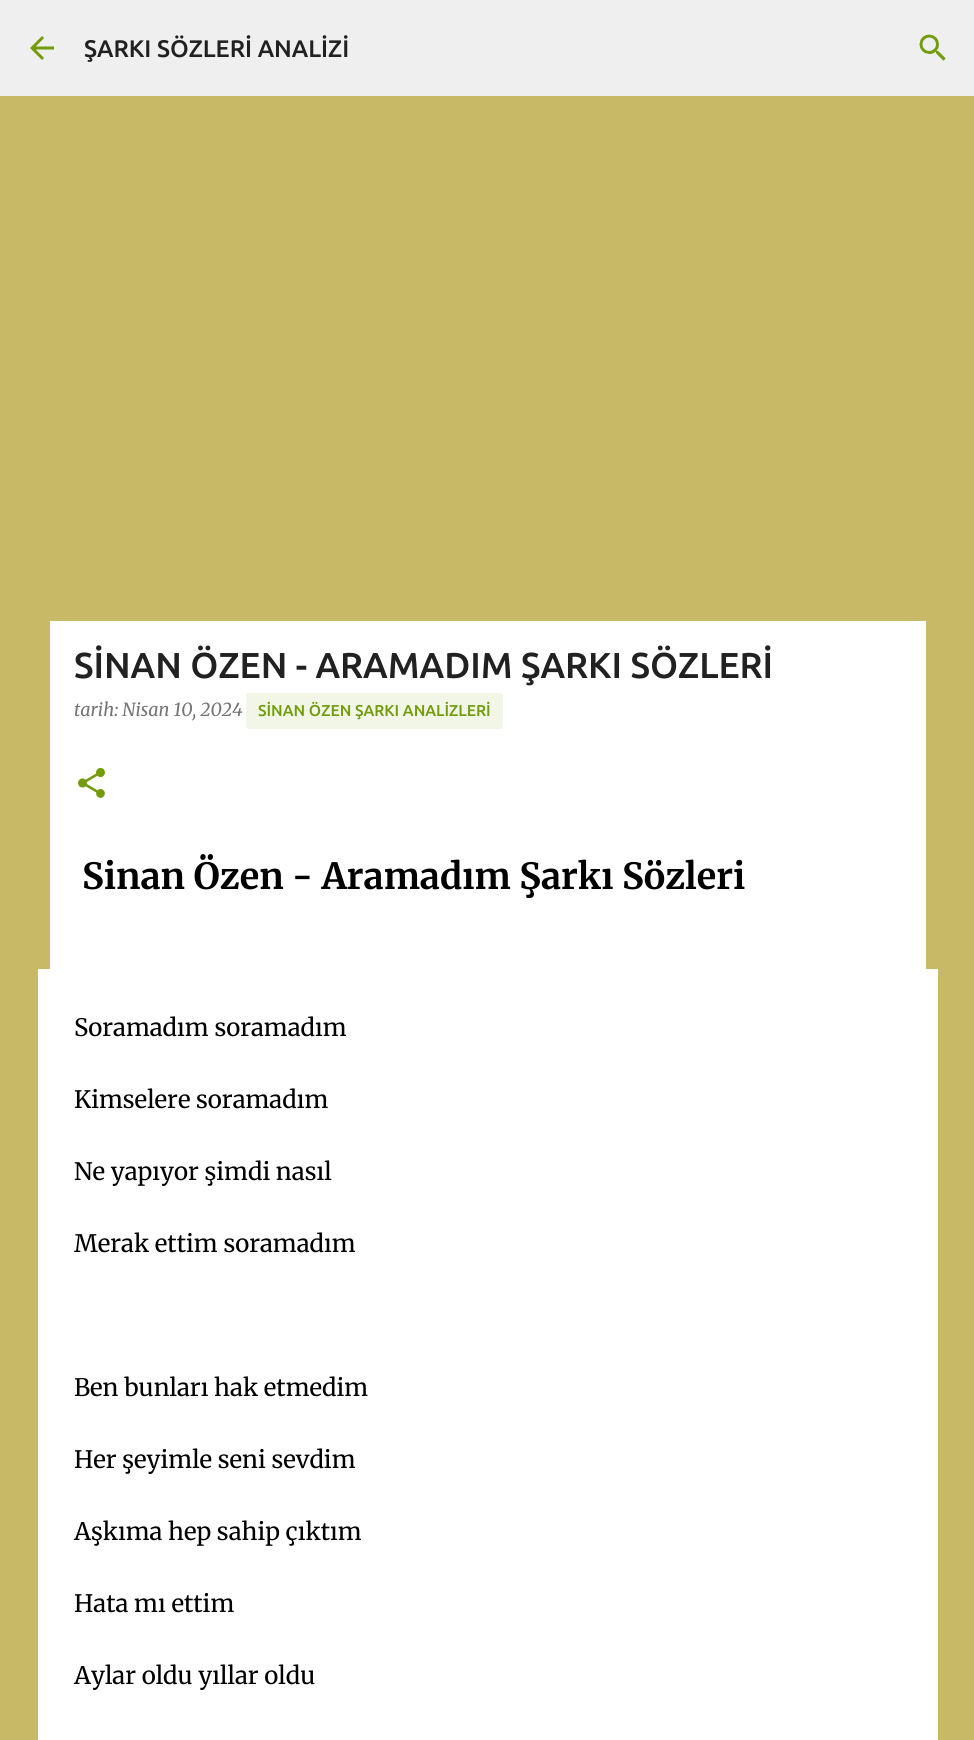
#include <cairo.h>
#include <math.h>
#include <stddef.h>


static void round_rect(cairo_t *cr, double x, double y, double w, double h, double r) {
    cairo_new_sub_path(cr);
    cairo_arc(cr, x + w - r, y + h - r, r, 0, M_PI / 2);
    cairo_arc(cr, x + r, y + h - r, r, M_PI / 2, M_PI);
    cairo_arc(cr, x + r, y + r, r, M_PI, 1.5 * M_PI);
    cairo_arc(cr, x + w - r, y + r, r, 1.5 * M_PI, 2 * M_PI);
    cairo_close_path(cr);
}

static void picture(cairo_t *cr, const char *path, double x, double y, double w, double h) {
    cairo_surface_t *image = cairo_image_surface_create_from_png(path);
    cairo_save(cr);
    cairo_set_source_surface(cr, image, x, y);
    cairo_rectangle(cr, x, y, w, h);
    cairo_fill(cr);
    cairo_restore(cr);
    cairo_surface_destroy(image);
}

int main(void) {
    cairo_surface_t *surface = cairo_image_surface_create(CAIRO_FORMAT_RGB24, 974, 1740);
    cairo_t *cr = cairo_create(surface);
    cairo_font_options_t *options = cairo_font_options_create();
    cairo_font_options_set_hint_metrics(options, CAIRO_HINT_METRICS_OFF);
    cairo_font_options_set_hint_style(options, CAIRO_HINT_STYLE_NONE);
    cairo_set_font_options(cr, options);
    cairo_set_miter_limit(cr, 4);
    cairo_set_source_rgb(cr, 0.784, 0.725, 0.404);
    cairo_paint(cr);
    cairo_set_source_rgb(cr, 0.937, 0.937, 0.937);
    cairo_rectangle(cr, 0, 0, 974, 96);
    cairo_fill(cr);
    picture(cr, "img1.png", 30, 36, 24, 24);
    cairo_select_font_face(cr, "Ubuntu Medium", CAIRO_FONT_SLANT_NORMAL, CAIRO_FONT_WEIGHT_NORMAL);
    cairo_set_font_size(cr, 24);
    cairo_set_source_rgb(cr, 0.129, 0.129, 0.129);
    cairo_move_to(cr, 84, 57);
    cairo_show_text(cr, "ŞARKI SÖZLERİ ANALİZİ");
    picture(cr, "img2.png", 919, 34, 27, 27);
    cairo_set_source_rgb(cr, 1, 1, 1);
    cairo_rectangle(cr, 38, 969, 900, 771);
    cairo_fill(cr);
    cairo_rectangle(cr, 50, 621, 876, 348);
    cairo_fill(cr);
    cairo_set_font_size(cr, 36);
    cairo_set_source_rgb(cr, 0.129, 0.129, 0.129);
    cairo_move_to(cr, 74, 678);
    cairo_show_text(cr, "SİNAN ÖZEN - ARAMADIM ŞARKI SÖZLERİ");
    cairo_select_font_face(cr, "Merriweather", CAIRO_FONT_SLANT_ITALIC, CAIRO_FONT_WEIGHT_NORMAL);
    cairo_set_font_size(cr, 18);
    cairo_set_source_rgb(cr, 0.459, 0.459, 0.459);
    cairo_move_to(cr, 74, 716);
    cairo_show_text(cr, "tarih: Nisan 10, 2024");
    cairo_set_source_rgb(cr, 0.945, 0.961, 0.906);
    round_rect(cr, 246, 693, 257, 36, 3);
    cairo_fill(cr);
    cairo_select_font_face(cr, "Ubuntu Medium", CAIRO_FONT_SLANT_NORMAL, CAIRO_FONT_WEIGHT_NORMAL);
    cairo_set_font_size(cr, 15.75);
    cairo_set_source_rgb(cr, 0.447, 0.612, 0.043);
    cairo_move_to(cr, 258, 716);
    cairo_show_text(cr, "SİNAN ÖZEN ŞARKI ANALİZLERİ");
    picture(cr, "img3.png", 78, 768, 27, 30);
    cairo_select_font_face(cr, "Merriweather", CAIRO_FONT_SLANT_NORMAL, CAIRO_FONT_WEIGHT_BOLD);
    cairo_set_font_size(cr, 36);
    cairo_set_source_rgb(cr, 0, 0, 0);
    cairo_move_to(cr, 82, 889);
    cairo_show_text(cr, "Sinan Özen - Aramadım Şarkı Sözleri");
    cairo_select_font_face(cr, "Merriweather", CAIRO_FONT_SLANT_NORMAL, CAIRO_FONT_WEIGHT_NORMAL);
    cairo_set_font_size(cr, 24);
    cairo_move_to(cr, 74, 1036);
    cairo_show_text(cr, "Soramadım soramadım");
    cairo_move_to(cr, 74, 1108);
    cairo_show_text(cr, "Kimselere soramadım");
    cairo_move_to(cr, 74, 1180);
    cairo_show_text(cr, "Ne yapıyor şimdi nasıl");
    cairo_move_to(cr, 74, 1252);
    cairo_show_text(cr, "Merak ettim soramadım");
    cairo_move_to(cr, 74, 1396);
    cairo_show_text(cr, "Ben bunları hak etmedim");
    cairo_move_to(cr, 74, 1468);
    cairo_show_text(cr, "Her şeyimle seni sevdim");
    cairo_move_to(cr, 74, 1540);
    cairo_show_text(cr, "Aşkıma hep sahip çıktım");
    cairo_move_to(cr, 74, 1612);
    cairo_show_text(cr, "Hata mı ettim");
    cairo_move_to(cr, 74, 1684);
    cairo_show_text(cr, "Aylar oldu yıllar oldu");
    cairo_surface_write_to_png(surface, "page.png");
    cairo_font_options_destroy(options);
    cairo_destroy(cr);
    cairo_surface_destroy(surface);
    return 0;
}
